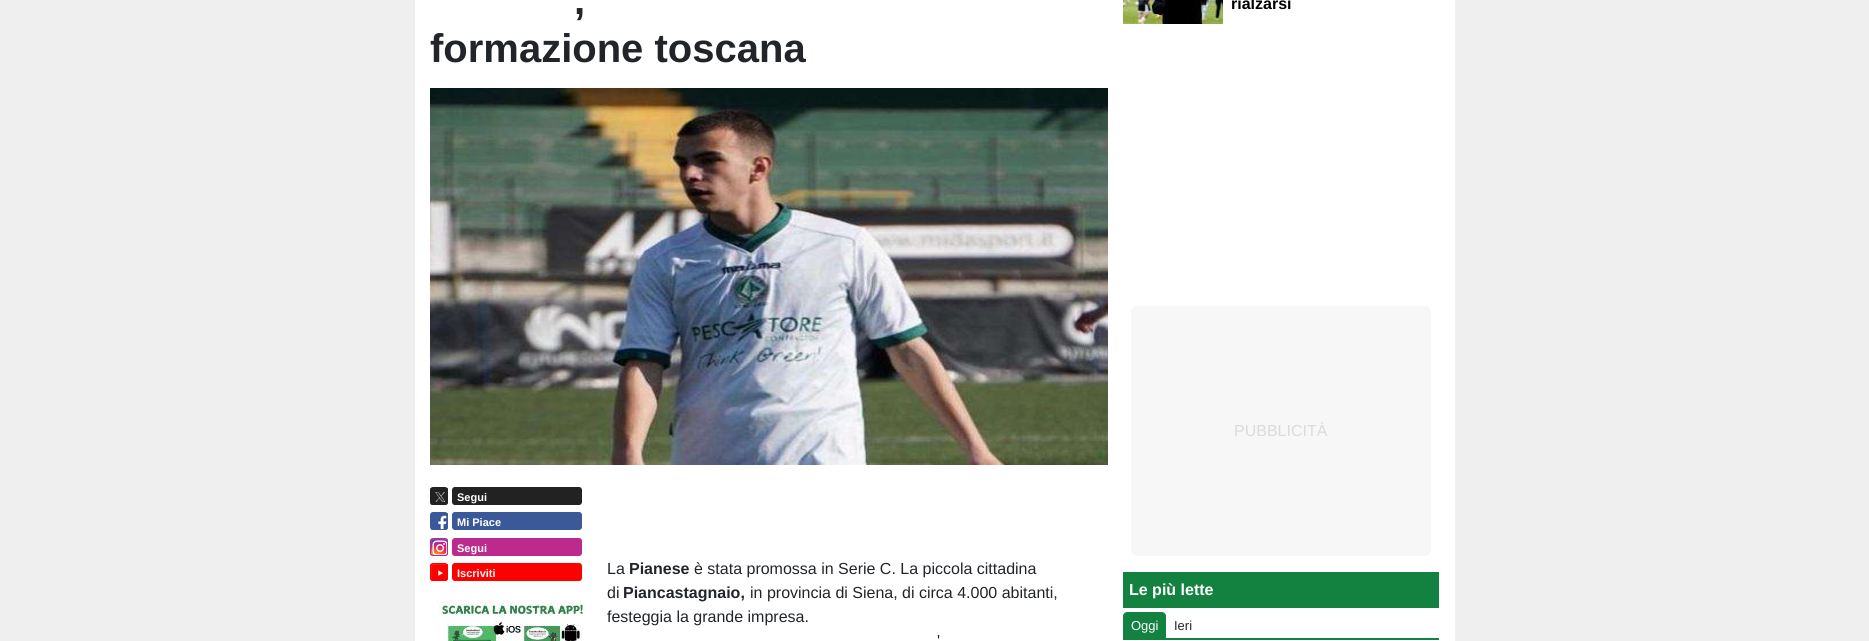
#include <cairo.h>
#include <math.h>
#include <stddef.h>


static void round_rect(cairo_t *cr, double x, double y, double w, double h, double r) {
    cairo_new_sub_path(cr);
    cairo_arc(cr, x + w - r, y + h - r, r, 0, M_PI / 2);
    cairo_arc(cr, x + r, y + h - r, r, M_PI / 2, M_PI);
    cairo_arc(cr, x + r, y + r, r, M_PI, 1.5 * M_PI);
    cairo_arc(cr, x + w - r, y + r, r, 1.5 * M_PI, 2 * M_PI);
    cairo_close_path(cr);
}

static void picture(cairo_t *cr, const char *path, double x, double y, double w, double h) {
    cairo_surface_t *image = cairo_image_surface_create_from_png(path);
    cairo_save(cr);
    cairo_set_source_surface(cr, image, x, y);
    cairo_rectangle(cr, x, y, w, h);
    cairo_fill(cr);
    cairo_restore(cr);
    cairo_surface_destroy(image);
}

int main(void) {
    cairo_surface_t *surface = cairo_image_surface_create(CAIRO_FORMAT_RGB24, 1869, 641);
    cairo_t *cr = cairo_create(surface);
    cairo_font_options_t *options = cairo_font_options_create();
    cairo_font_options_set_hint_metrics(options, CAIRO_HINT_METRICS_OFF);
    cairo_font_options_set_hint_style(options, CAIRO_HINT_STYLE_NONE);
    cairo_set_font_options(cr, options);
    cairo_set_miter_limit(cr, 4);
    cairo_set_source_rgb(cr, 0.937, 0.937, 0.937);
    cairo_paint(cr);
    cairo_set_source_rgb(cr, 1, 1, 1);
    cairo_rectangle(cr, 415, 0, 1040, 641);
    cairo_fill(cr);
    cairo_select_font_face(cr, "Liberation Sans", CAIRO_FONT_SLANT_NORMAL, CAIRO_FONT_WEIGHT_BOLD);
    cairo_set_font_size(cr, 40);
    cairo_set_source_rgb(cr, 0.129, 0.145, 0.161);
    cairo_move_to(cr, 574, 14);
    cairo_show_text(cr, ",");
    cairo_move_to(cr, 430, 62);
    cairo_show_text(cr, "formazione toscana");
    picture(cr, "img1.png", 430, 88, 678, 377);
    picture(cr, "img2.png", 430, 488, 18, 17);
    round_rect(cr, 430.5, 487.5, 17, 17, 2.5);
    cairo_set_source_rgb(cr, 0.133, 0.133, 0.133);
    cairo_set_line_width(cr, 1);
    cairo_stroke(cr);
    round_rect(cr, 452.5, 487.5, 129, 17, 2.5);
    cairo_fill_preserve(cr);
    cairo_stroke(cr);
    cairo_set_font_size(cr, 11);
    cairo_set_source_rgb(cr, 1, 1, 1);
    cairo_move_to(cr, 457, 501);
    cairo_show_text(cr, "Segui");
    picture(cr, "img3.png", 431, 513, 17, 17);
    round_rect(cr, 430.5, 512.5, 17, 17, 2.5);
    cairo_set_source_rgb(cr, 0.231, 0.349, 0.596);
    cairo_stroke(cr);
    round_rect(cr, 452.5, 512.5, 129, 17, 2.5);
    cairo_fill_preserve(cr);
    cairo_stroke(cr);
    cairo_set_source_rgb(cr, 1, 1, 1);
    cairo_move_to(cr, 457, 526);
    cairo_show_text(cr, "Mi Piace");
    picture(cr, "img4.png", 430, 539, 18, 17);
    round_rect(cr, 430.5, 538.5, 17, 17, 2.5);
    cairo_set_source_rgb(cr, 0.737, 0.165, 0.553);
    cairo_stroke(cr);
    round_rect(cr, 452.5, 538.5, 129, 17, 2.5);
    cairo_fill_preserve(cr);
    cairo_stroke(cr);
    cairo_set_source_rgb(cr, 1, 1, 1);
    cairo_move_to(cr, 457, 552);
    cairo_show_text(cr, "Segui");
    picture(cr, "img5.png", 430, 564, 18, 17);
    round_rect(cr, 430.5, 563.5, 17, 17, 2.5);
    cairo_set_source_rgb(cr, 1, 0, 0);
    cairo_stroke(cr);
    round_rect(cr, 452.5, 563.5, 129, 17, 2.5);
    cairo_fill_preserve(cr);
    cairo_stroke(cr);
    cairo_set_source_rgb(cr, 1, 1, 1);
    cairo_move_to(cr, 457, 577);
    cairo_show_text(cr, "Iscriviti");
    picture(cr, "img6.png", 436, 600, 150, 41);
    cairo_select_font_face(cr, "Liberation Sans", CAIRO_FONT_SLANT_NORMAL, CAIRO_FONT_WEIGHT_NORMAL);
    cairo_set_font_size(cr, 16);
    cairo_set_source_rgb(cr, 0.129, 0.145, 0.161);
    cairo_move_to(cr, 607, 574);
    cairo_show_text(cr, "La");
    cairo_select_font_face(cr, "Liberation Sans", CAIRO_FONT_SLANT_NORMAL, CAIRO_FONT_WEIGHT_BOLD);
    cairo_move_to(cr, 629, 574);
    cairo_show_text(cr, "Pianese");
    cairo_select_font_face(cr, "Liberation Sans", CAIRO_FONT_SLANT_NORMAL, CAIRO_FONT_WEIGHT_NORMAL);
    cairo_move_to(cr, 694, 574);
    cairo_show_text(cr, "è stata promossa in Serie C. La piccola cittadina");
    cairo_move_to(cr, 607, 598);
    cairo_show_text(cr, "di");
    cairo_select_font_face(cr, "Liberation Sans", CAIRO_FONT_SLANT_NORMAL, CAIRO_FONT_WEIGHT_BOLD);
    cairo_move_to(cr, 623, 598);
    cairo_show_text(cr, "Piancastagnaio,");
    cairo_select_font_face(cr, "Liberation Sans", CAIRO_FONT_SLANT_NORMAL, CAIRO_FONT_WEIGHT_NORMAL);
    cairo_move_to(cr, 750, 598);
    cairo_show_text(cr, "in provincia di Siena, di circa 4.000 abitanti,");
    cairo_move_to(cr, 607, 622);
    cairo_show_text(cr, "festeggia la grande impresa.");
    cairo_move_to(cr, 937, 646);
    cairo_show_text(cr, "'");
    picture(cr, "img7.png", 1123, 0, 100, 24);
    cairo_select_font_face(cr, "Liberation Sans", CAIRO_FONT_SLANT_NORMAL, CAIRO_FONT_WEIGHT_BOLD);
    cairo_set_source_rgb(cr, 0, 0, 0);
    cairo_move_to(cr, 1231, 9);
    cairo_show_text(cr, "rialzarsi");
    cairo_set_source_rgb(cr, 0.965, 0.965, 0.965);
    round_rect(cr, 1131, 306, 300, 250, 6);
    cairo_fill(cr);
    cairo_select_font_face(cr, "Liberation Sans", CAIRO_FONT_SLANT_NORMAL, CAIRO_FONT_WEIGHT_NORMAL);
    cairo_set_source_rgb(cr, 0.859, 0.859, 0.859);
    cairo_move_to(cr, 1234, 436);
    cairo_show_text(cr, "PUBBLICITÀ");
    cairo_set_source_rgb(cr, 0.078, 0.51, 0.251);
    cairo_rectangle(cr, 1123, 572, 316, 36);
    cairo_fill(cr);
    cairo_select_font_face(cr, "Liberation Sans", CAIRO_FONT_SLANT_NORMAL, CAIRO_FONT_WEIGHT_BOLD);
    cairo_set_source_rgb(cr, 1, 1, 1);
    cairo_move_to(cr, 1129, 595);
    cairo_show_text(cr, "Le più lette");
    cairo_set_source_rgb(cr, 0.078, 0.51, 0.251);
    cairo_rectangle(cr, 1123, 638, 316, 2);
    cairo_fill(cr);
    cairo_new_path(cr);
    cairo_move_to(cr, 1127, 612);
    cairo_line_to(cr, 1162, 612);
    cairo_curve_to(cr, 1164, 612, 1166, 614, 1166, 616);
    cairo_line_to(cr, 1166, 639);
    cairo_line_to(cr, 1123, 639);
    cairo_line_to(cr, 1123, 616);
    cairo_curve_to(cr, 1123, 614, 1125, 612, 1127, 612);
    cairo_close_path(cr);
    cairo_fill(cr);
    cairo_select_font_face(cr, "Liberation Sans", CAIRO_FONT_SLANT_NORMAL, CAIRO_FONT_WEIGHT_NORMAL);
    cairo_set_font_size(cr, 13);
    cairo_set_source_rgb(cr, 1, 1, 1);
    cairo_move_to(cr, 1131, 630);
    cairo_show_text(cr, "Oggi");
    cairo_set_source_rgb(cr, 0.129, 0.145, 0.161);
    cairo_move_to(cr, 1174, 630);
    cairo_show_text(cr, "Ieri");
    cairo_surface_write_to_png(surface, "page.png");
    cairo_font_options_destroy(options);
    cairo_destroy(cr);
    cairo_surface_destroy(surface);
    return 0;
}
